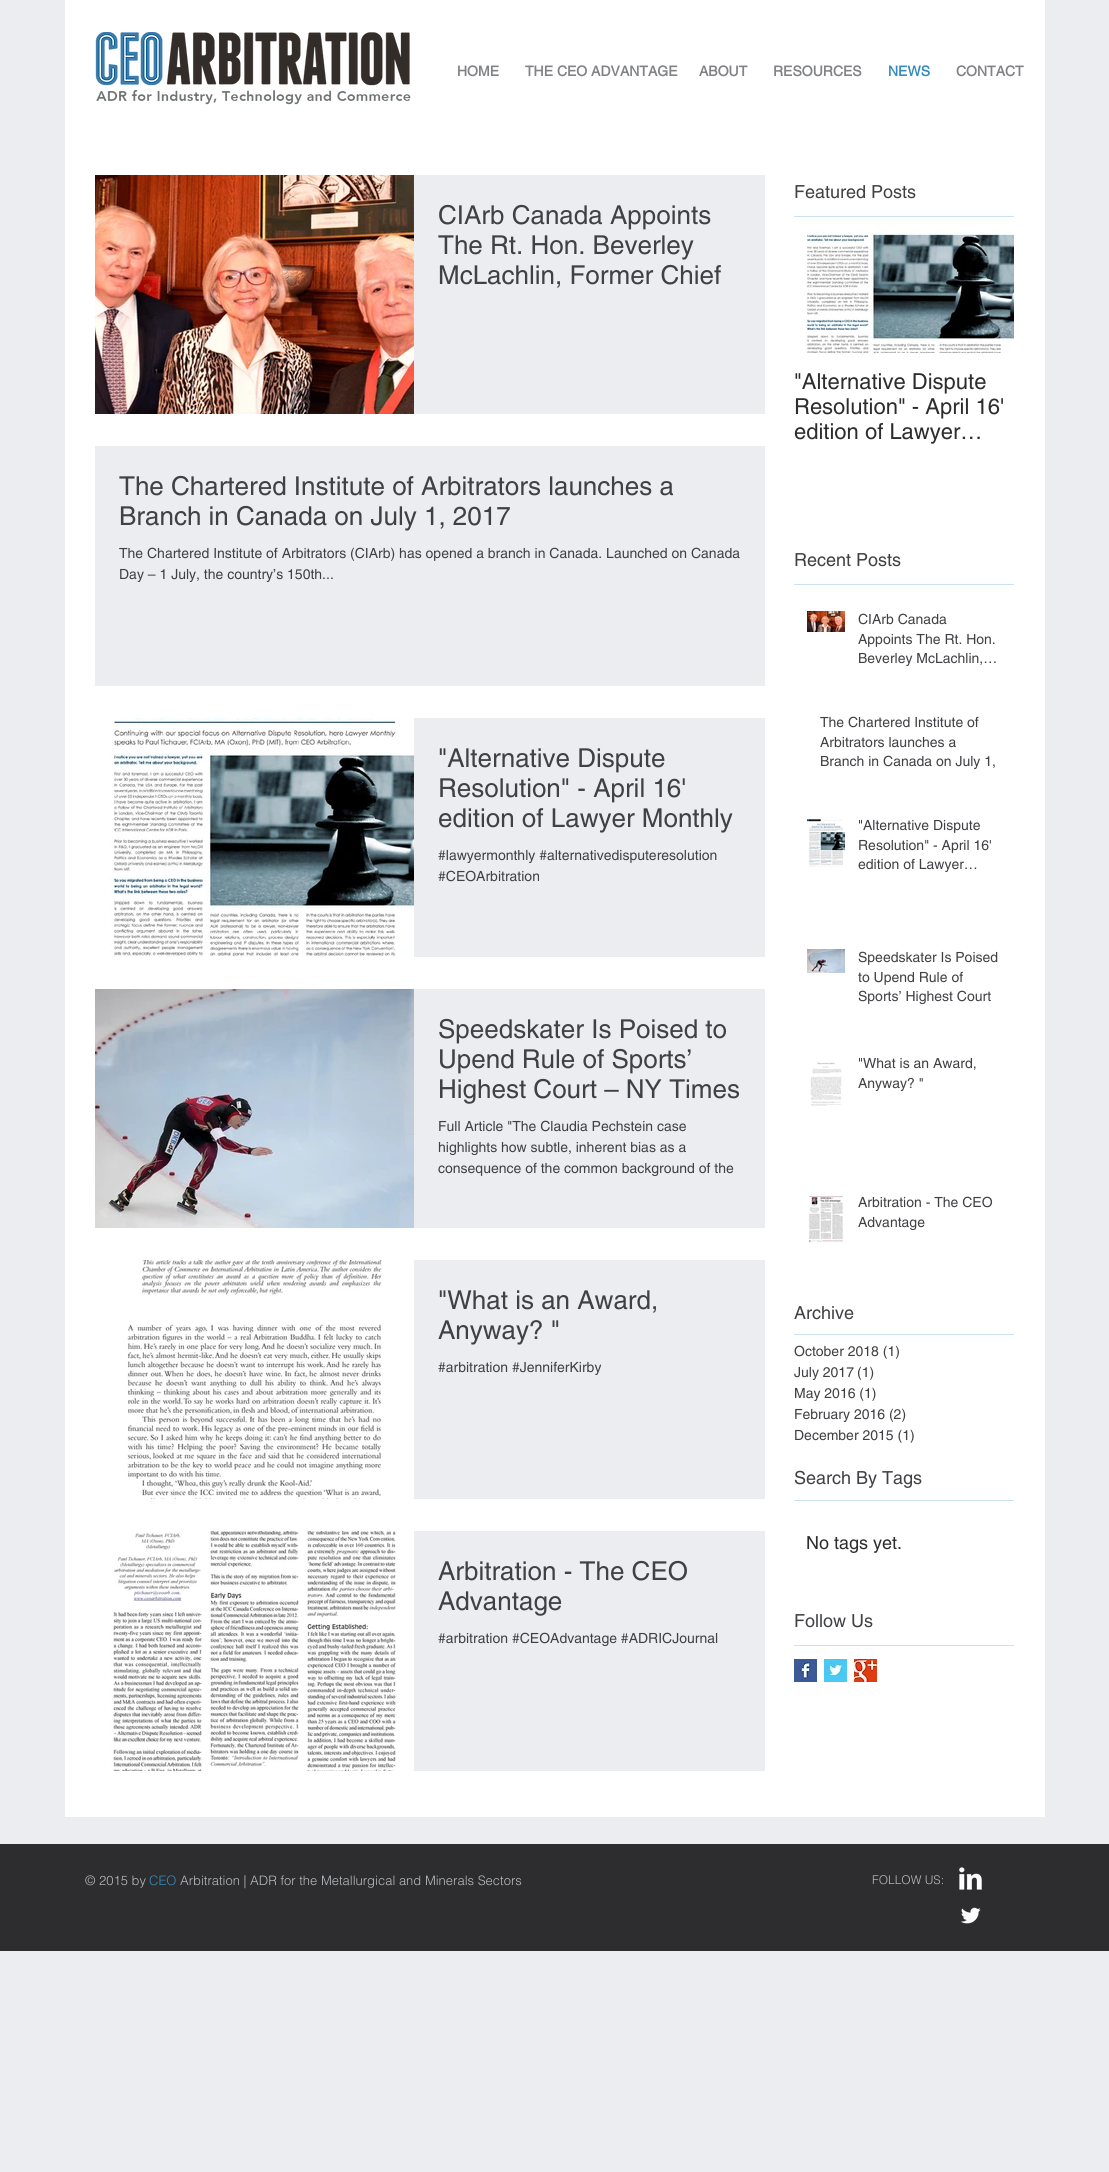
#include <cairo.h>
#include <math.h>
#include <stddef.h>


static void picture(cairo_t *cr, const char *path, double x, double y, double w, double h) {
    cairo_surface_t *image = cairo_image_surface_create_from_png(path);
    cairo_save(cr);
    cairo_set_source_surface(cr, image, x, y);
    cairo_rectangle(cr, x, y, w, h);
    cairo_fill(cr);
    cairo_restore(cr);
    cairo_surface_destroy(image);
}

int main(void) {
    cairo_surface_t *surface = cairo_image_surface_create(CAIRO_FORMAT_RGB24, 1109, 2172);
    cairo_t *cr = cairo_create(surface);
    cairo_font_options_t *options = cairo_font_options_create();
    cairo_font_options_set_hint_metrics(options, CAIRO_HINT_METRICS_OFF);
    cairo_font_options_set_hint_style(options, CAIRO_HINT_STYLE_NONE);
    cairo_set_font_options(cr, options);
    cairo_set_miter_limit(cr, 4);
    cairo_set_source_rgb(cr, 0.922, 0.929, 0.945);
    cairo_paint(cr);
    cairo_set_source_rgb(cr, 1, 1, 1);
    cairo_rectangle(cr, 65, 0, 980, 1817);
    cairo_fill(cr);
    picture(cr, "img1.png", 95, 32, 316, 73);
    cairo_select_font_face(cr, "helvetica", CAIRO_FONT_SLANT_NORMAL, CAIRO_FONT_WEIGHT_BOLD);
    cairo_set_font_size(cr, 14);
    cairo_set_source_rgb(cr, 0.506, 0.51, 0.522);
    cairo_move_to(cr, 457, 76);
    cairo_show_text(cr, "HOME");
    cairo_move_to(cr, 525, 76);
    cairo_show_text(cr, "THE CEO ADVANTAGE");
    cairo_move_to(cr, 699, 76);
    cairo_show_text(cr, "ABOUT");
    cairo_move_to(cr, 773, 76);
    cairo_show_text(cr, "RESOURCES");
    cairo_set_source_rgb(cr, 0.208, 0.541, 0.741);
    cairo_move_to(cr, 888, 76);
    cairo_show_text(cr, "NEWS");
    cairo_set_source_rgb(cr, 0.506, 0.51, 0.522);
    cairo_move_to(cr, 956, 76);
    cairo_show_text(cr, "CONTACT");
    cairo_select_font_face(cr, "helvetica", CAIRO_FONT_SLANT_NORMAL, CAIRO_FONT_WEIGHT_NORMAL);
    cairo_set_font_size(cr, 18);
    cairo_set_source_rgb(cr, 0.251, 0.255, 0.267);
    cairo_move_to(cr, 794, 198);
    cairo_show_text(cr, "Featured Posts");
    picture(cr, "img2.png", 95, 175, 319, 239);
    cairo_set_source_rgb(cr, 0.922, 0.929, 0.945);
    cairo_rectangle(cr, 414, 175, 351, 239);
    cairo_fill(cr);
    cairo_set_font_size(cr, 26);
    cairo_set_source_rgb(cr, 0.251, 0.255, 0.267);
    cairo_move_to(cr, 438, 224);
    cairo_show_text(cr, "CIArb Canada Appoints");
    cairo_save(cr);
    cairo_rectangle(cr, 438, 200, 303, 90);
    cairo_clip(cr);
    cairo_move_to(cr, 438, 254);
    cairo_show_text(cr, "The Rt. Hon. Beverley");
    cairo_restore(cr);
    cairo_move_to(cr, 438, 284);
    cairo_show_text(cr, "McLachlin, Former Chief");
    cairo_set_source_rgb(cr, 0.922, 0.929, 0.945);
    cairo_rectangle(cr, 95, 446, 670, 240);
    cairo_fill(cr);
    cairo_save(cr);
    cairo_rectangle(cr, 119, 471, 622, 60);
    cairo_clip(cr);
    cairo_set_source_rgb(cr, 0.251, 0.255, 0.267);
    cairo_move_to(cr, 119, 495);
    cairo_show_text(cr, "The Chartered Institute of Arbitrators launches a");
    cairo_restore(cr);
    cairo_set_source_rgb(cr, 0.251, 0.255, 0.267);
    cairo_move_to(cr, 119, 525);
    cairo_show_text(cr, "Branch in Canada on July 1, 2017");
    cairo_set_font_size(cr, 14);
    cairo_move_to(cr, 119, 558);
    cairo_show_text(cr, "The Chartered Institute of Arbitrators (CIArb) has opened a branch in Canada. Launched on Canada");
    cairo_move_to(cr, 119, 579);
    cairo_show_text(cr, "Day – 1 July, the country’s 150th...");
    picture(cr, "img3.png", 95, 718, 319, 239);
    cairo_set_source_rgb(cr, 0.922, 0.929, 0.945);
    cairo_rectangle(cr, 414, 718, 351, 239);
    cairo_fill(cr);
    cairo_set_font_size(cr, 26);
    cairo_set_source_rgb(cr, 0.251, 0.255, 0.267);
    cairo_move_to(cr, 438, 767);
    cairo_show_text(cr, "\"Alternative Dispute");
    cairo_move_to(cr, 438, 797);
    cairo_show_text(cr, "Resolution\" - April 16'");
    cairo_move_to(cr, 438, 827);
    cairo_show_text(cr, "edition of Lawyer Monthly");
    cairo_set_font_size(cr, 14);
    cairo_move_to(cr, 438, 860);
    cairo_show_text(cr, "#lawyermonthly #alternativedisputeresolution");
    cairo_move_to(cr, 438, 881);
    cairo_show_text(cr, "#CEOArbitration");
    picture(cr, "img4.png", 95, 989, 319, 239);
    cairo_set_source_rgb(cr, 0.922, 0.929, 0.945);
    cairo_rectangle(cr, 414, 989, 351, 239);
    cairo_fill(cr);
    cairo_set_font_size(cr, 26);
    cairo_set_source_rgb(cr, 0.251, 0.255, 0.267);
    cairo_move_to(cr, 438, 1038);
    cairo_show_text(cr, "Speedskater Is Poised to");
    cairo_move_to(cr, 438, 1068);
    cairo_show_text(cr, "Upend Rule of Sports’");
    cairo_move_to(cr, 438, 1098);
    cairo_show_text(cr, "Highest Court – NY Times");
    cairo_set_font_size(cr, 14);
    cairo_move_to(cr, 438, 1131);
    cairo_show_text(cr, "Full Article \"The Claudia Pechstein case");
    cairo_move_to(cr, 438, 1152);
    cairo_show_text(cr, "highlights how subtle, inherent bias as a");
    cairo_move_to(cr, 438, 1173);
    cairo_show_text(cr, "consequence of the common background of the");
    picture(cr, "img5.png", 103, 1260, 311, 239);
    cairo_set_source_rgb(cr, 0.922, 0.929, 0.945);
    cairo_rectangle(cr, 414, 1260, 351, 239);
    cairo_fill(cr);
    cairo_set_font_size(cr, 26);
    cairo_set_source_rgb(cr, 0.251, 0.255, 0.267);
    cairo_move_to(cr, 438, 1309);
    cairo_show_text(cr, "\"What is an Award,");
    cairo_move_to(cr, 438, 1339);
    cairo_show_text(cr, "Anyway? \"");
    cairo_set_font_size(cr, 14);
    cairo_move_to(cr, 438, 1372);
    cairo_show_text(cr, "#arbitration #JenniferKirby");
    picture(cr, "img6.png", 95, 1531, 319, 240);
    cairo_set_source_rgb(cr, 0.922, 0.929, 0.945);
    cairo_rectangle(cr, 414, 1531, 351, 240);
    cairo_fill(cr);
    cairo_set_font_size(cr, 26);
    cairo_set_source_rgb(cr, 0.251, 0.255, 0.267);
    cairo_move_to(cr, 438, 1580);
    cairo_show_text(cr, "Arbitration - The CEO");
    cairo_move_to(cr, 438, 1610);
    cairo_show_text(cr, "Advantage");
    cairo_set_font_size(cr, 14);
    cairo_move_to(cr, 438, 1643);
    cairo_show_text(cr, "#arbitration #CEOAdvantage #ADRICJournal");
    cairo_set_source_rgb(cr, 0.804, 0.886, 0.937);
    cairo_rectangle(cr, 794, 216, 220, 1);
    cairo_fill(cr);
    picture(cr, "img7.png", 794, 230, 220, 123);
    cairo_set_font_size(cr, 22);
    cairo_set_source_rgb(cr, 0.176, 0.176, 0.184);
    cairo_move_to(cr, 794, 389);
    cairo_show_text(cr, "\"Alternative Dispute");
    cairo_move_to(cr, 794, 414);
    cairo_show_text(cr, "Resolution\" - April 16'");
    cairo_move_to(cr, 794, 439);
    cairo_show_text(cr, "edition of Lawyer…");
    cairo_set_font_size(cr, 18);
    cairo_set_source_rgb(cr, 0.251, 0.255, 0.267);
    cairo_move_to(cr, 794, 566);
    cairo_show_text(cr, "Recent Posts");
    cairo_set_source_rgb(cr, 0.804, 0.886, 0.937);
    cairo_rectangle(cr, 794, 584, 220, 1);
    cairo_fill(cr);
    picture(cr, "img8.png", 807, 611, 38, 21);
    cairo_set_font_size(cr, 14);
    cairo_set_source_rgb(cr, 0.251, 0.255, 0.267);
    cairo_move_to(cr, 858, 624);
    cairo_show_text(cr, "CIArb Canada");
    cairo_move_to(cr, 858, 644);
    cairo_show_text(cr, "Appoints The Rt. Hon.");
    cairo_move_to(cr, 858, 663);
    cairo_show_text(cr, "Beverley McLachlin,…");
    cairo_move_to(cr, 820, 727);
    cairo_show_text(cr, "The Chartered Institute of");
    cairo_move_to(cr, 820, 747);
    cairo_show_text(cr, "Arbitrators launches a");
    cairo_move_to(cr, 820, 766);
    cairo_show_text(cr, "Branch in Canada on July 1,");
    picture(cr, "img9.png", 807, 817, 38, 50);
    cairo_move_to(cr, 858, 830);
    cairo_show_text(cr, "\"Alternative Dispute");
    cairo_move_to(cr, 858, 850);
    cairo_show_text(cr, "Resolution\" - April 16'");
    cairo_move_to(cr, 858, 869);
    cairo_show_text(cr, "edition of Lawyer…");
    picture(cr, "img10.png", 807, 949, 38, 24);
    cairo_move_to(cr, 858, 962);
    cairo_show_text(cr, "Speedskater Is Poised");
    cairo_move_to(cr, 858, 982);
    cairo_show_text(cr, "to Upend Rule of");
    cairo_move_to(cr, 858, 1001);
    cairo_show_text(cr, "Sports’ Highest Court");
    picture(cr, "img11.png", 807, 1061, 38, 48);
    cairo_move_to(cr, 858, 1068);
    cairo_show_text(cr, "\"What is an Award,");
    cairo_move_to(cr, 858, 1088);
    cairo_show_text(cr, "Anyway? \"");
    picture(cr, "img12.png", 807, 1194, 38, 49);
    cairo_move_to(cr, 858, 1207);
    cairo_show_text(cr, "Arbitration - The CEO");
    cairo_move_to(cr, 858, 1227);
    cairo_show_text(cr, "Advantage");
    cairo_set_font_size(cr, 18);
    cairo_move_to(cr, 794, 1319);
    cairo_show_text(cr, "Archive");
    cairo_set_source_rgb(cr, 0.804, 0.886, 0.937);
    cairo_rectangle(cr, 794, 1334, 220, 1);
    cairo_fill(cr);
    cairo_set_font_size(cr, 14);
    cairo_set_source_rgb(cr, 0.251, 0.255, 0.267);
    cairo_move_to(cr, 794, 1356);
    cairo_show_text(cr, "October 2018 (1)");
    cairo_save(cr);
    cairo_rectangle(cr, 794, 1362, 80, 21);
    cairo_clip(cr);
    cairo_move_to(cr, 794, 1377);
    cairo_show_text(cr, "July 2017");
    cairo_restore(cr);
    cairo_move_to(cr, 857, 1377);
    cairo_show_text(cr, "(1)");
    cairo_move_to(cr, 794, 1398);
    cairo_show_text(cr, "May 2016 (1)");
    cairo_move_to(cr, 794, 1419);
    cairo_show_text(cr, "February 2016 (2)");
    cairo_move_to(cr, 794, 1440);
    cairo_show_text(cr, "December 2015 (1)");
    cairo_set_font_size(cr, 18);
    cairo_move_to(cr, 794, 1484);
    cairo_show_text(cr, "Search By Tags");
    cairo_set_source_rgb(cr, 0.804, 0.886, 0.937);
    cairo_rectangle(cr, 794, 1500, 220, 1);
    cairo_fill(cr);
    cairo_set_source_rgb(cr, 0.176, 0.176, 0.184);
    cairo_move_to(cr, 806, 1549);
    cairo_show_text(cr, "No tags yet.");
    cairo_set_source_rgb(cr, 0.251, 0.255, 0.267);
    cairo_move_to(cr, 794, 1627);
    cairo_show_text(cr, "Follow Us");
    cairo_set_source_rgb(cr, 0.804, 0.886, 0.937);
    cairo_rectangle(cr, 794, 1645, 220, 1);
    cairo_fill(cr);
    picture(cr, "img13.png", 794, 1659, 23, 23);
    picture(cr, "img14.png", 824, 1659, 23, 23);
    picture(cr, "img15.png", 854, 1659, 23, 23);
    cairo_set_source_rgb(cr, 0.176, 0.176, 0.184);
    cairo_rectangle(cr, 0, 1844, 1109, 107);
    cairo_fill(cr);
    cairo_select_font_face(cr, "helvetica Light", CAIRO_FONT_SLANT_NORMAL, CAIRO_FONT_WEIGHT_NORMAL);
    cairo_set_font_size(cr, 13);
    cairo_set_source_rgb(cr, 0.722, 0.733, 0.757);
    cairo_move_to(cr, 85, 1885);
    cairo_show_text(cr, "© 2015 by");
    cairo_set_source_rgb(cr, 0.208, 0.541, 0.741);
    cairo_move_to(cr, 149, 1885);
    cairo_show_text(cr, "CEO");
    cairo_set_source_rgb(cr, 0.722, 0.733, 0.757);
    cairo_move_to(cr, 180, 1885);
    cairo_show_text(cr, "Arbitration | ADR for the Metallurgical and Minerals Sectors");
    cairo_set_font_size(cr, 12);
    cairo_move_to(cr, 872, 1884);
    cairo_show_text(cr, "FOLLOW US:");
    picture(cr, "img16.png", 959, 1867, 23, 23);
    picture(cr, "img17.png", 961, 1907, 20, 17);
    cairo_surface_write_to_png(surface, "page.png");
    cairo_font_options_destroy(options);
    cairo_destroy(cr);
    cairo_surface_destroy(surface);
    return 0;
}
